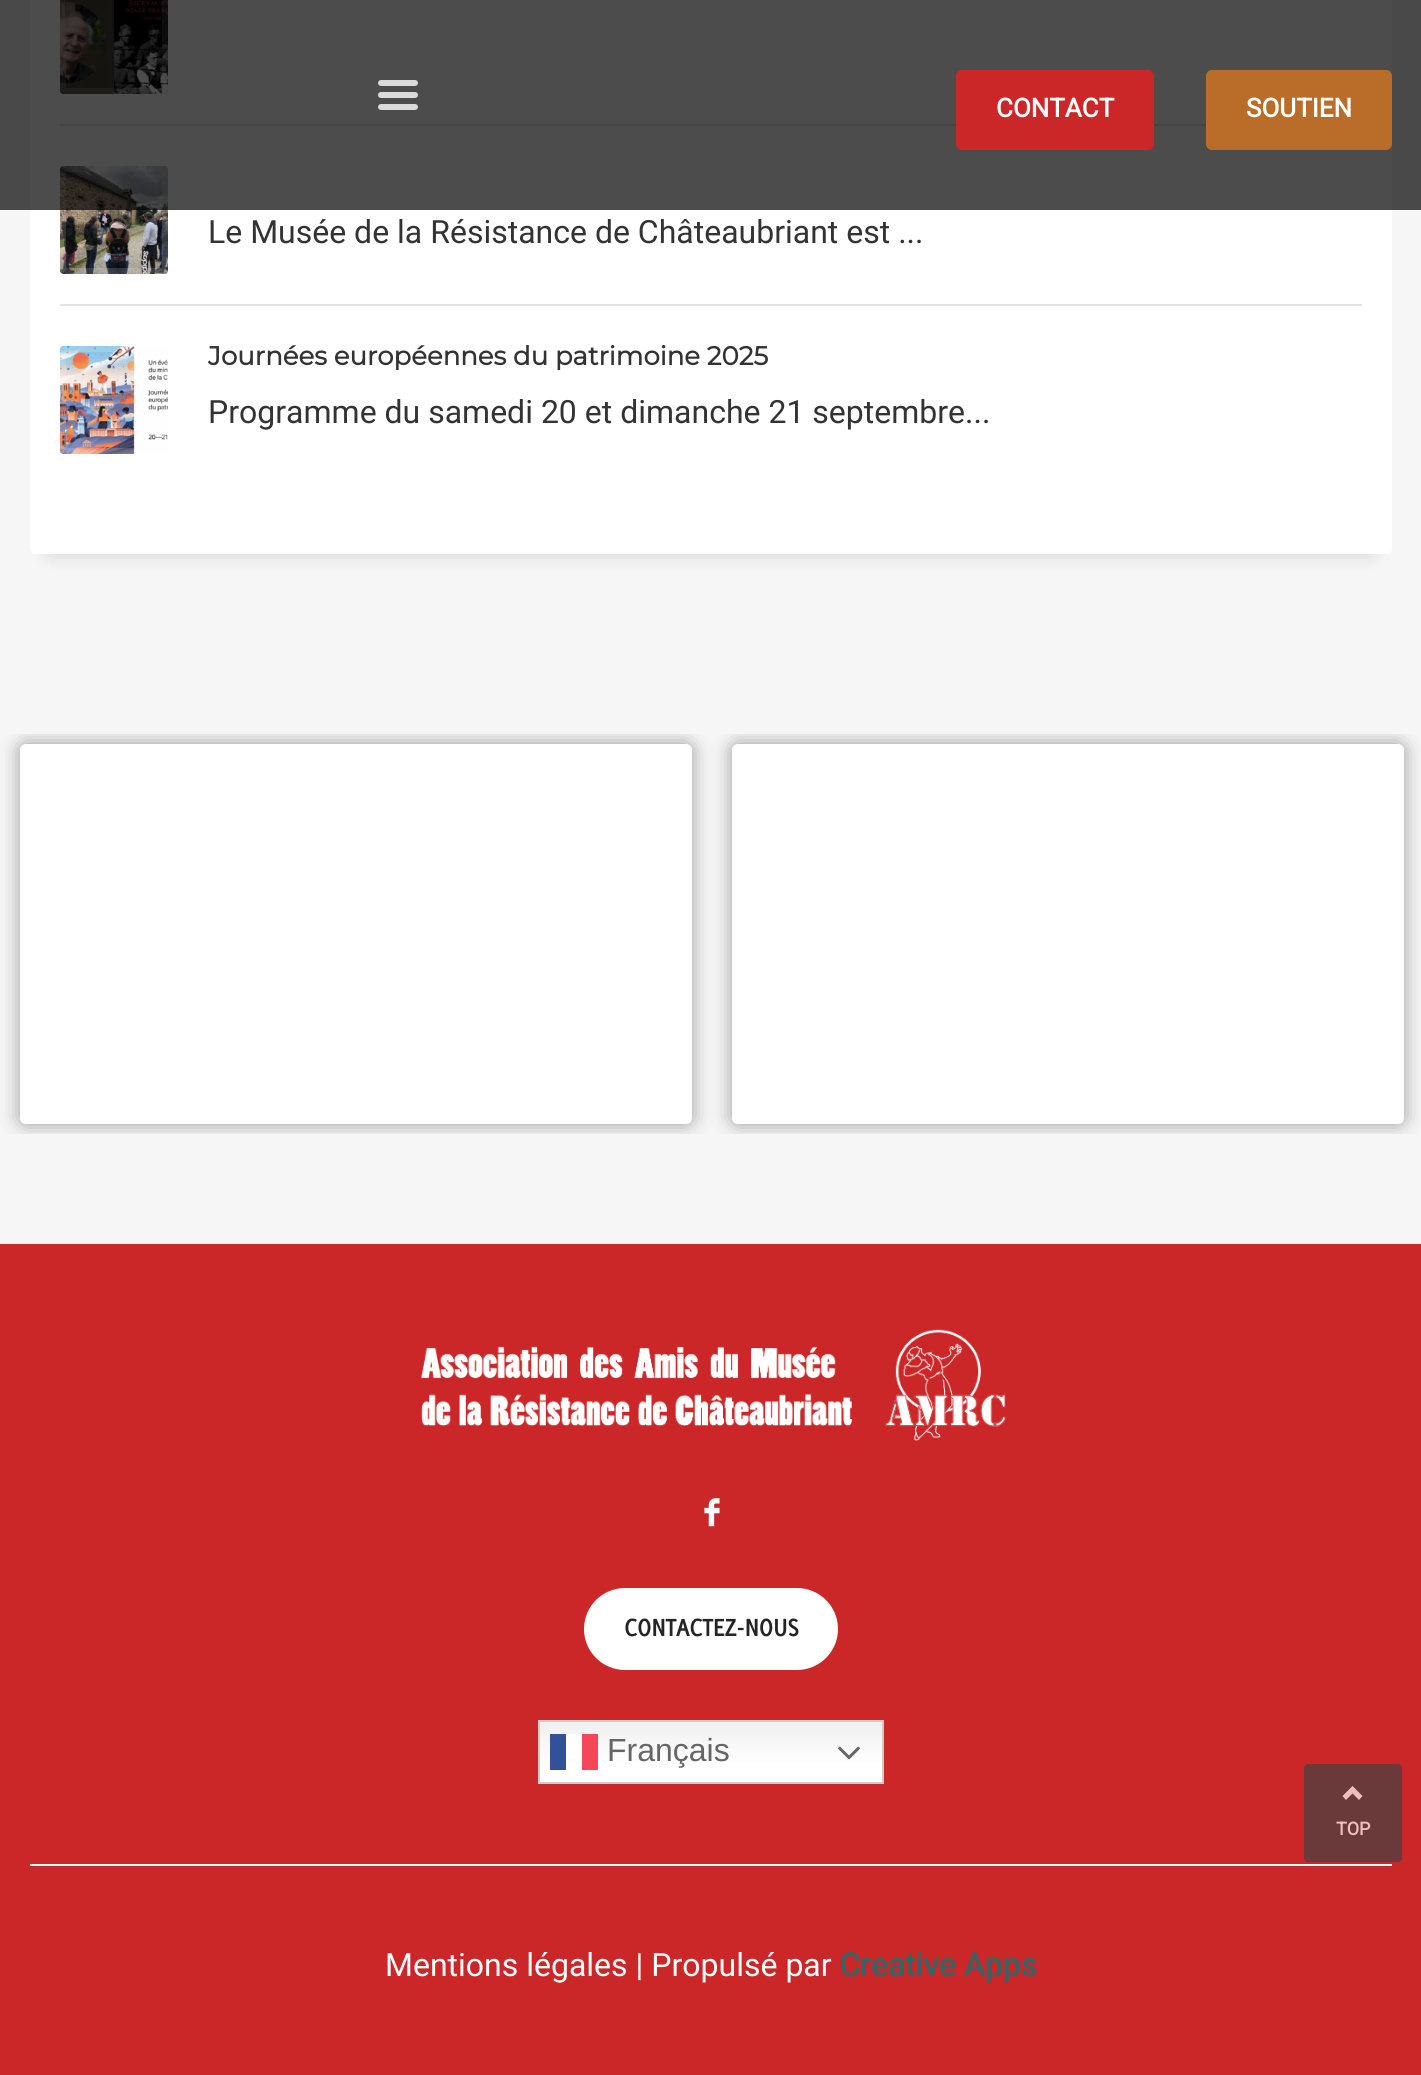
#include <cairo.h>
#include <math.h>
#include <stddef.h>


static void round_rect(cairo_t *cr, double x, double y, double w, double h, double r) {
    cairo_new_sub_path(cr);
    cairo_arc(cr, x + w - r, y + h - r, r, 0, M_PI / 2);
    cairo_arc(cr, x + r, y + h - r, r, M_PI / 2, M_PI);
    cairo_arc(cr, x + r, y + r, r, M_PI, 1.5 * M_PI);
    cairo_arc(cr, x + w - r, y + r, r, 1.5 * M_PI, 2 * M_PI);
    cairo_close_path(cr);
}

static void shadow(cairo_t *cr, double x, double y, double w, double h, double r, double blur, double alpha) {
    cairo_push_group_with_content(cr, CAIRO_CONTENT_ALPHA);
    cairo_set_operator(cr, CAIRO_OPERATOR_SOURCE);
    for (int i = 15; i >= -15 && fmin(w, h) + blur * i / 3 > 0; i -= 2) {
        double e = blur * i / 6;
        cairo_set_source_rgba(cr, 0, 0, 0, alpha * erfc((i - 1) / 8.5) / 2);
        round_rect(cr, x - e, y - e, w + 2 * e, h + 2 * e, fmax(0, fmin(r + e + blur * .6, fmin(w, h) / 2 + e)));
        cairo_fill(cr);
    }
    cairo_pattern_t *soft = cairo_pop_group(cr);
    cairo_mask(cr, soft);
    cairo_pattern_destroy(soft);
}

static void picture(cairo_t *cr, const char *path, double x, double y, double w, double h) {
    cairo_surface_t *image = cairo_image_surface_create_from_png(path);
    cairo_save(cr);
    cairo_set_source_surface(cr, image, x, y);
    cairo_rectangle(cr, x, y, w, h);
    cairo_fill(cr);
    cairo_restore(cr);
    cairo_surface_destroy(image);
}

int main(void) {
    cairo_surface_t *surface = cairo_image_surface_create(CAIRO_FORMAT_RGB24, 1421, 2075);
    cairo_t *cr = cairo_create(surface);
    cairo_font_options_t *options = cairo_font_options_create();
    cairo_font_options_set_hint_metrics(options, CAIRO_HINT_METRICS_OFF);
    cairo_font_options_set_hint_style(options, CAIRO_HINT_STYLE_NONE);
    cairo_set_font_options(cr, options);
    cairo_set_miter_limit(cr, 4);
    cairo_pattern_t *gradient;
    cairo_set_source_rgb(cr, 0.961, 0.961, 0.961);
    cairo_paint(cr);
    cairo_set_source_rgb(cr, 0, 0, 0);
    shadow(cr, 50, -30, 1322, 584, 0, 10, 0.15);
    cairo_set_source_rgb(cr, 1, 1, 1);
    round_rect(cr, 30, -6, 1362, 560, 6);
    cairo_fill(cr);
    cairo_set_source_rgb(cr, 0.89, 0.89, 0.89);
    cairo_rectangle(cr, 60, 124, 1146, 2);
    cairo_fill(cr);
    picture(cr, "img1.png", 60, 0, 108, 94);
    round_rect(cr, 63, -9, 102, 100, 3);
    cairo_set_source_rgba(cr, 1, 1, 1, 0.15);
    cairo_set_line_width(cr, 6);
    cairo_stroke(cr);
    picture(cr, "img2.png", 60, 166, 108, 108);
    round_rect(cr, 63, 169, 102, 102, 3);
    cairo_stroke(cr);
    cairo_set_source_rgba(cr, 0, 0, 0, 0.7);
    cairo_rectangle(cr, 0, 0, 1421, 210);
    cairo_fill(cr);
    cairo_set_source_rgb(cr, 0.859, 0.859, 0.859);
    round_rect(cr, 378, 80, 40, 6, 3);
    cairo_fill(cr);
    round_rect(cr, 378, 92, 40, 6, 3);
    cairo_fill(cr);
    round_rect(cr, 378, 104, 40, 6, 3);
    cairo_fill(cr);
    cairo_set_source_rgb(cr, 0.8, 0.153, 0.157);
    round_rect(cr, 956, 70, 198, 80, 6);
    cairo_fill(cr);
    cairo_select_font_face(cr, "Roboto", CAIRO_FONT_SLANT_NORMAL, CAIRO_FONT_WEIGHT_BOLD);
    cairo_set_font_size(cr, 26);
    cairo_set_source_rgb(cr, 1, 1, 1);
    cairo_move_to(cr, 996, 117);
    cairo_show_text(cr, "CONTACT");
    cairo_set_source_rgb(cr, 0.725, 0.427, 0.161);
    round_rect(cr, 1206, 70, 186, 80, 6);
    cairo_fill(cr);
    cairo_set_source_rgb(cr, 1, 1, 1);
    cairo_move_to(cr, 1246, 117);
    cairo_show_text(cr, "SOUTIEN");
    cairo_set_source_rgb(cr, 0.89, 0.89, 0.89);
    cairo_rectangle(cr, 60, 304, 1302, 2);
    cairo_fill(cr);
    cairo_select_font_face(cr, "Roboto", CAIRO_FONT_SLANT_NORMAL, CAIRO_FONT_WEIGHT_NORMAL);
    cairo_set_font_size(cr, 32);
    cairo_set_source_rgb(cr, 0.2, 0.2, 0.2);
    cairo_move_to(cr, 208, 243);
    cairo_show_text(cr, "Le Musée de la Résistance de Châteaubriant est ...");
    picture(cr, "img3.png", 60, 346, 108, 108);
    round_rect(cr, 63, 349, 102, 102, 3);
    cairo_set_source_rgba(cr, 1, 1, 1, 0.15);
    cairo_stroke(cr);
    cairo_select_font_face(cr, "Montserrat", CAIRO_FONT_SLANT_NORMAL, CAIRO_FONT_WEIGHT_BOLD);
    cairo_set_font_size(cr, 26);
    cairo_set_source_rgb(cr, 0.2, 0.2, 0.2);
    cairo_move_to(cr, 208, 365);
    cairo_show_text(cr, "Journées européennes du patrimoine 2025");
    cairo_select_font_face(cr, "Roboto", CAIRO_FONT_SLANT_NORMAL, CAIRO_FONT_WEIGHT_NORMAL);
    cairo_set_font_size(cr, 32);
    cairo_move_to(cr, 208, 423);
    cairo_show_text(cr, "Programme du samedi 20 et dimanche 21 septembre...");
    cairo_save(cr);
    cairo_rectangle(cr, 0, 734, 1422, 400);
    cairo_clip(cr);
    cairo_set_source_rgb(cr, 0, 0, 0);
    shadow(cr, 20, 744, 672, 380, 6, 10, 0.38);
    cairo_restore(cr);
    cairo_set_source_rgb(cr, 1, 1, 1);
    round_rect(cr, 20, 744, 672, 380, 6);
    cairo_fill(cr);
    cairo_save(cr);
    cairo_rectangle(cr, 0, 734, 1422, 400);
    cairo_clip(cr);
    cairo_set_source_rgb(cr, 0, 0, 0);
    shadow(cr, 732, 744, 672, 380, 6, 10, 0.38);
    cairo_restore(cr);
    round_rect(cr, 732, 744, 672, 380, 6);
    cairo_fill(cr);
    cairo_set_source_rgb(cr, 0.8, 0.153, 0.157);
    cairo_rectangle(cr, 0, 1244, 1421, 831);
    cairo_fill(cr);
    picture(cr, "img4.png", 421, 1329, 585, 112);
    picture(cr, "img5.png", 704, 1498, 16, 29);
    cairo_set_source_rgb(cr, 1, 1, 1);
    round_rect(cr, 584, 1588, 254, 82, 41);
    cairo_fill(cr);
    cairo_select_font_face(cr, "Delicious", CAIRO_FONT_SLANT_NORMAL, CAIRO_FONT_WEIGHT_BOLD);
    cairo_set_font_size(cr, 26);
    cairo_set_source_rgb(cr, 0.141, 0.141, 0.141);
    cairo_move_to(cr, 624, 1636);
    cairo_show_text(cr, "CONTACTEZ-NOUS");
    gradient = cairo_pattern_create_linear(711, 1720, 711, 1784);
    cairo_pattern_add_color_stop_rgba(gradient, 0, 0.937, 0.937, 0.937, 1);
    cairo_pattern_add_color_stop_rgba(gradient, 0.7, 1, 1, 1, 1);
    cairo_set_source(cr, gradient);
    cairo_pattern_destroy(gradient);
    cairo_rectangle(cr, 540, 1722, 342, 60);
    cairo_fill(cr);
    gradient = cairo_pattern_create_linear(711, 1720, 711, 1784);
    cairo_pattern_add_color_stop_rgba(gradient, 0, 0.988, 0.988, 0.988, 1);
    cairo_pattern_add_color_stop_rgba(gradient, 0.7, 1, 1, 1, 1);
    cairo_set_source(cr, gradient);
    cairo_pattern_destroy(gradient);
    cairo_rectangle(cr, 566, 1734, 16, 24);
    cairo_fill(cr);
    cairo_rectangle(cr, 539, 1721, 344, 62);
    cairo_set_source_rgb(cr, 0.8, 0.8, 0.8);
    cairo_set_line_width(cr, 2);
    cairo_stroke(cr);
    cairo_set_source_rgb(cr, 0.2, 0.318, 0.596);
    cairo_rectangle(cr, 550, 1734, 16, 36);
    cairo_fill(cr);
    cairo_set_source_rgb(cr, 0.961, 0.275, 0.349);
    cairo_rectangle(cr, 582, 1734, 16, 36);
    cairo_fill(cr);
    cairo_select_font_face(cr, "Liberation Sans", CAIRO_FONT_SLANT_NORMAL, CAIRO_FONT_WEIGHT_NORMAL);
    cairo_set_font_size(cr, 32);
    cairo_set_source_rgb(cr, 0.4, 0.4, 0.4);
    cairo_move_to(cr, 607, 1761);
    cairo_show_text(cr, "Français");
    picture(cr, "img6.png", 838, 1746, 22, 14);
    cairo_set_source_rgb(cr, 1, 1, 1);
    cairo_rectangle(cr, 30, 1864, 1362, 2);
    cairo_fill(cr);
    cairo_select_font_face(cr, "Roboto", CAIRO_FONT_SLANT_NORMAL, CAIRO_FONT_WEIGHT_NORMAL);
    cairo_move_to(cr, 385, 1976);
    cairo_show_text(cr, "Mentions légales | Propulsé par");
    cairo_select_font_face(cr, "Roboto", CAIRO_FONT_SLANT_NORMAL, CAIRO_FONT_WEIGHT_BOLD);
    cairo_set_source_rgb(cr, 0.2, 0.4, 0.4);
    cairo_move_to(cr, 839, 1976);
    cairo_show_text(cr, "Creative Apps");
    cairo_set_source_rgb(cr, 0.416, 0.224, 0.224);
    round_rect(cr, 1304, 1764, 98, 98, 4);
    cairo_fill(cr);
    cairo_set_source_rgb(cr, 0.941, 0.745, 0.749);
    cairo_new_path(cr);
    cairo_move_to(cr, 1352.5, 1786);
    cairo_line_to(cr, 1362.5, 1796);
    cairo_line_to(cr, 1359, 1800);
    cairo_line_to(cr, 1352.5, 1793.5);
    cairo_line_to(cr, 1346, 1800);
    cairo_line_to(cr, 1342.5, 1796);
    cairo_close_path(cr);
    cairo_fill(cr);
    cairo_set_font_size(cr, 18);
    cairo_move_to(cr, 1336, 1835);
    cairo_show_text(cr, "TOP");
    cairo_surface_write_to_png(surface, "page.png");
    cairo_font_options_destroy(options);
    cairo_destroy(cr);
    cairo_surface_destroy(surface);
    return 0;
}
